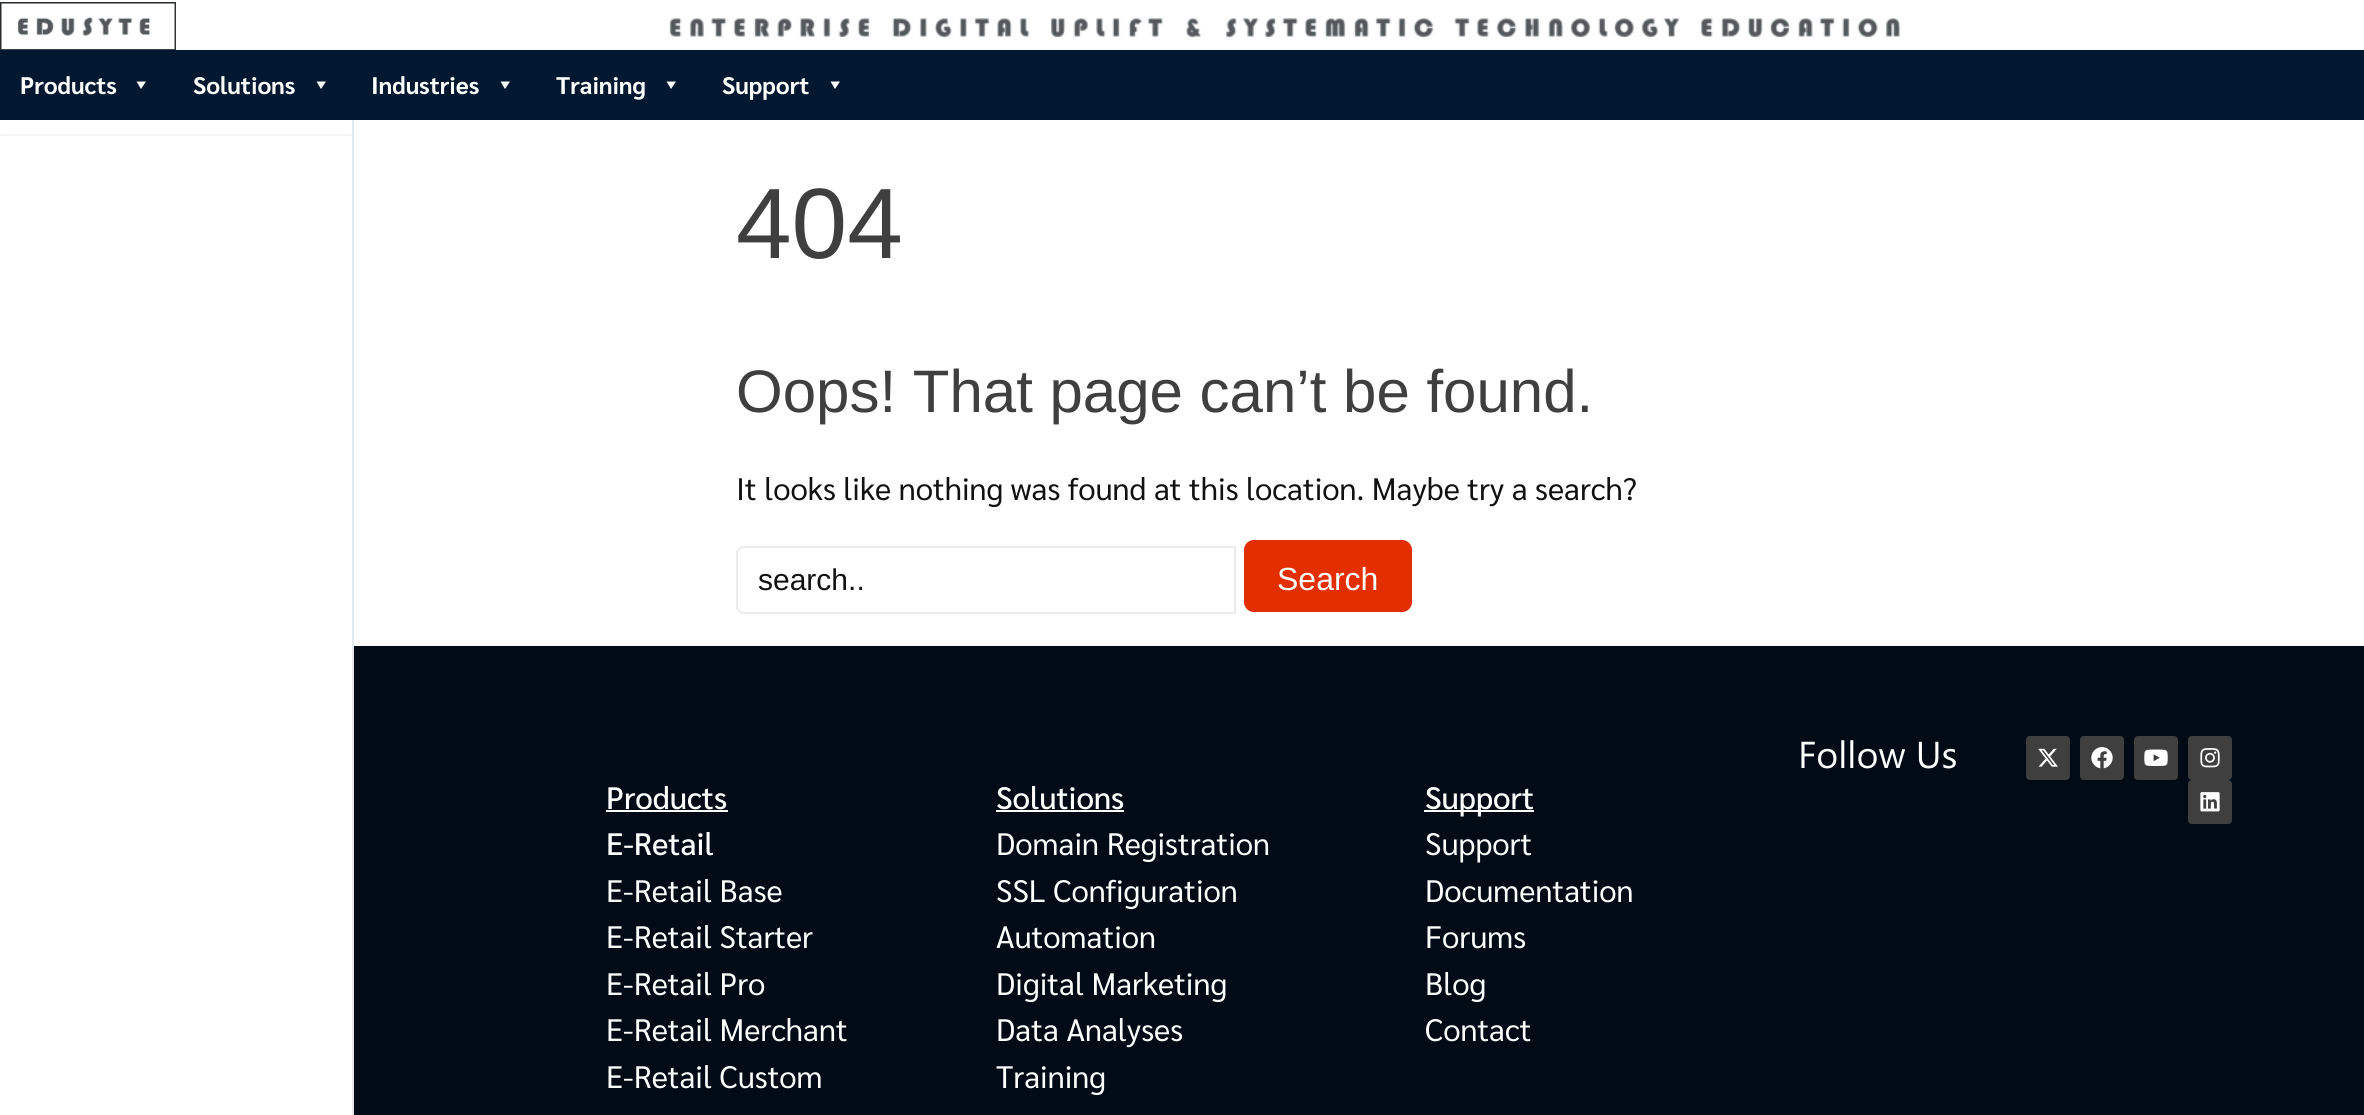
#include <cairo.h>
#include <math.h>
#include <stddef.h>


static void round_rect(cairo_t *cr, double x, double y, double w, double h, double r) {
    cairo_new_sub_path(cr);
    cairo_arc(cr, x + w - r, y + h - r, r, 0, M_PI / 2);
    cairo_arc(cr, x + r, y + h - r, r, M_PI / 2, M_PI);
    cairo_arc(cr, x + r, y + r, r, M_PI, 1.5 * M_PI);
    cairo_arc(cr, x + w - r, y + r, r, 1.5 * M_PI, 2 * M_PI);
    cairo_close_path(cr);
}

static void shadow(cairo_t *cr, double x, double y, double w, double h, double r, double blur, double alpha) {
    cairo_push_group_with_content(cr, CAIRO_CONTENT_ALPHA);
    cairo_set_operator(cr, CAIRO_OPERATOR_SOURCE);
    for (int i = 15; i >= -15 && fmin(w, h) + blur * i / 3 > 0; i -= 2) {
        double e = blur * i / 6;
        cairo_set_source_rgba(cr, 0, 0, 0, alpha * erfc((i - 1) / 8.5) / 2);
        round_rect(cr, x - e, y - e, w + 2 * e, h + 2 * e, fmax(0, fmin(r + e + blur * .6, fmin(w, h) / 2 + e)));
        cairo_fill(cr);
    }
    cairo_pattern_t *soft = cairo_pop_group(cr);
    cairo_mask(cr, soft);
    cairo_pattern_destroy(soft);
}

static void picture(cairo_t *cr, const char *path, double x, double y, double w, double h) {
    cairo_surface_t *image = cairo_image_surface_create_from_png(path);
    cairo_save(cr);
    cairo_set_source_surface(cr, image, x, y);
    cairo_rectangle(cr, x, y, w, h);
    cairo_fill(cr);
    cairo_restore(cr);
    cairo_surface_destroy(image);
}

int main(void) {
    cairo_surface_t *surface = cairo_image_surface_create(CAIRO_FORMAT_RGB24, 2364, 1115);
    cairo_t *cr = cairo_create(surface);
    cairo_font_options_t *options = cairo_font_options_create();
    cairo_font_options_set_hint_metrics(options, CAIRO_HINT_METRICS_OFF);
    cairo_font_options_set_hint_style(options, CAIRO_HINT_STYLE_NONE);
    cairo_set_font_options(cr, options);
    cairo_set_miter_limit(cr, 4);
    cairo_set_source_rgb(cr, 1, 1, 1);
    cairo_paint(cr);
    picture(cr, "img1.png", 0, 2, 176, 48);
    picture(cr, "img2.png", 669, 18, 1232, 20);
    cairo_set_source_rgb(cr, 0, 0.098, 0.192);
    cairo_rectangle(cr, 0, 50, 2364, 70);
    cairo_fill(cr);
    cairo_select_font_face(cr, "Sarabun", CAIRO_FONT_SLANT_NORMAL, CAIRO_FONT_WEIGHT_BOLD);
    cairo_set_font_size(cr, 24);
    cairo_set_source_rgb(cr, 1, 1, 1);
    cairo_move_to(cr, 20, 94);
    cairo_show_text(cr, "Products");
    cairo_new_path(cr);
    cairo_move_to(cr, 146, 81.5);
    cairo_line_to(cr, 141, 89);
    cairo_line_to(cr, 136.5, 81.5);
    cairo_close_path(cr);
    cairo_fill(cr);
    cairo_move_to(cr, 193, 94);
    cairo_show_text(cr, "Solutions");
    cairo_new_path(cr);
    cairo_move_to(cr, 326, 81.5);
    cairo_line_to(cr, 321, 89);
    cairo_line_to(cr, 316.5, 81.5);
    cairo_close_path(cr);
    cairo_fill(cr);
    cairo_move_to(cr, 371, 94);
    cairo_show_text(cr, "Industries");
    cairo_new_path(cr);
    cairo_move_to(cr, 510, 81.5);
    cairo_line_to(cr, 505, 89);
    cairo_line_to(cr, 500.5, 81.5);
    cairo_close_path(cr);
    cairo_fill(cr);
    cairo_move_to(cr, 556, 94);
    cairo_show_text(cr, "Training");
    cairo_new_path(cr);
    cairo_move_to(cr, 676, 81.5);
    cairo_line_to(cr, 671, 89);
    cairo_line_to(cr, 666.5, 81.5);
    cairo_close_path(cr);
    cairo_fill(cr);
    cairo_move_to(cr, 722, 94);
    cairo_show_text(cr, "Support");
    cairo_new_path(cr);
    cairo_move_to(cr, 840, 81.5);
    cairo_line_to(cr, 835, 89);
    cairo_line_to(cr, 830.5, 81.5);
    cairo_close_path(cr);
    cairo_fill(cr);
    cairo_set_source_rgb(cr, 0.89, 0.914, 0.937);
    cairo_rectangle(cr, 352, 120, 2, 995);
    cairo_fill(cr);
    cairo_save(cr);
    cairo_rectangle(cr, 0, 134, 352, 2);
    cairo_clip(cr);
    cairo_set_source_rgb(cr, 0, 0, 0);
    shadow(cr, 0, 132, 352, 4, 2, 1, 0.05);
    cairo_restore(cr);
    cairo_select_font_face(cr, "Liberation Sans", CAIRO_FONT_SLANT_NORMAL, CAIRO_FONT_WEIGHT_NORMAL);
    cairo_set_font_size(cr, 100);
    cairo_set_source_rgb(cr, 0.247, 0.247, 0.247);
    cairo_move_to(cr, 736, 258);
    cairo_show_text(cr, "404");
    cairo_set_font_size(cr, 60);
    cairo_move_to(cr, 736, 412);
    cairo_show_text(cr, "Oops! That page can’t be found.");
    cairo_select_font_face(cr, "Sarabun", CAIRO_FONT_SLANT_NORMAL, CAIRO_FONT_WEIGHT_NORMAL);
    cairo_set_font_size(cr, 31);
    cairo_set_source_rgb(cr, 0.067, 0.067, 0.067);
    cairo_move_to(cr, 736, 500);
    cairo_show_text(cr, "It looks like nothing was found at this location. Maybe try a search?");
    cairo_new_path(cr);
    cairo_move_to(cr, 744, 547);
    cairo_line_to(cr, 1235, 547);
    cairo_line_to(cr, 1235, 613);
    cairo_line_to(cr, 744, 613);
    cairo_curve_to(cr, 740, 613, 737, 610, 737, 606);
    cairo_line_to(cr, 737, 554);
    cairo_curve_to(cr, 737, 550, 740, 547, 744, 547);
    cairo_close_path(cr);
    cairo_set_source_rgb(cr, 0.918, 0.918, 0.918);
    cairo_stroke(cr);
    cairo_select_font_face(cr, "Liberation Sans", CAIRO_FONT_SLANT_NORMAL, CAIRO_FONT_WEIGHT_NORMAL);
    cairo_set_font_size(cr, 30);
    cairo_set_source_rgb(cr, 0.067, 0.067, 0.067);
    cairo_move_to(cr, 758, 590);
    cairo_show_text(cr, "search..");
    cairo_set_source_rgb(cr, 0.89, 0.18, 0);
    round_rect(cr, 1245, 541, 166, 70, 9);
    cairo_fill_preserve(cr);
    cairo_stroke(cr);
    cairo_set_font_size(cr, 32);
    cairo_set_source_rgb(cr, 1, 1, 1);
    cairo_move_to(cr, 1277, 590);
    cairo_show_text(cr, "Search");
    cairo_set_source_rgb(cr, 0, 0.043, 0.086);
    cairo_rectangle(cr, 354, 646, 2010, 469);
    cairo_fill(cr);
    cairo_select_font_face(cr, "Segoe UI", CAIRO_FONT_SLANT_NORMAL, CAIRO_FONT_WEIGHT_NORMAL);
    cairo_set_font_size(cr, 37.5);
    cairo_set_source_rgb(cr, 1, 1, 1);
    cairo_move_to(cr, 1798, 768);
    cairo_show_text(cr, "Follow Us");
    cairo_set_source_rgb(cr, 0.247, 0.247, 0.247);
    round_rect(cr, 2026, 736, 44, 44, 4);
    cairo_fill(cr);
    picture(cr, "img3.png", 2038, 748, 20, 19);
    round_rect(cr, 2080, 736, 44, 44, 4);
    cairo_fill(cr);
    picture(cr, "img4.png", 2091, 747, 22, 22);
    round_rect(cr, 2134, 736, 44, 44, 4);
    cairo_fill(cr);
    picture(cr, "img5.png", 2144, 749, 24, 17);
    round_rect(cr, 2188, 736, 44, 44, 4);
    cairo_fill(cr);
    picture(cr, "img6.png", 2200, 748, 20, 20);
    round_rect(cr, 2188, 780, 44, 44, 4);
    cairo_fill(cr);
    picture(cr, "img7.png", 2200, 792, 20, 20);
    cairo_select_font_face(cr, "Sarabun Medium", CAIRO_FONT_SLANT_NORMAL, CAIRO_FONT_WEIGHT_NORMAL);
    cairo_set_font_size(cr, 31);
    cairo_set_source_rgb(cr, 1, 1, 1);
    cairo_move_to(cr, 606, 809);
    cairo_show_text(cr, "Products");
    cairo_rectangle(cr, 606, 810, 122, 2);
    cairo_fill(cr);
    cairo_move_to(cr, 606, 855);
    cairo_show_text(cr, "E-Retail");
    cairo_select_font_face(cr, "Sarabun", CAIRO_FONT_SLANT_NORMAL, CAIRO_FONT_WEIGHT_NORMAL);
    cairo_move_to(cr, 606, 902);
    cairo_show_text(cr, "E-Retail Base");
    cairo_move_to(cr, 606, 948);
    cairo_show_text(cr, "E-Retail Starter");
    cairo_move_to(cr, 606, 995);
    cairo_show_text(cr, "E-Retail Pro");
    cairo_move_to(cr, 606, 1041);
    cairo_show_text(cr, "E-Retail Merchant");
    cairo_move_to(cr, 606, 1088);
    cairo_show_text(cr, "E-Retail Custom");
    cairo_select_font_face(cr, "Sarabun Medium", CAIRO_FONT_SLANT_NORMAL, CAIRO_FONT_WEIGHT_NORMAL);
    cairo_move_to(cr, 996, 809);
    cairo_show_text(cr, "Solutions");
    cairo_rectangle(cr, 996, 810, 128, 2);
    cairo_fill(cr);
    cairo_select_font_face(cr, "Sarabun", CAIRO_FONT_SLANT_NORMAL, CAIRO_FONT_WEIGHT_NORMAL);
    cairo_move_to(cr, 996, 855);
    cairo_show_text(cr, "Domain Registration");
    cairo_move_to(cr, 996, 902);
    cairo_show_text(cr, "SSL Configuration");
    cairo_move_to(cr, 996, 948);
    cairo_show_text(cr, "Automation");
    cairo_move_to(cr, 996, 995);
    cairo_show_text(cr, "Digital Marketing");
    cairo_move_to(cr, 996, 1041);
    cairo_show_text(cr, "Data Analyses");
    cairo_move_to(cr, 996, 1088);
    cairo_show_text(cr, "Training");
    cairo_rectangle(cr, 1424, 810, 110, 2);
    cairo_fill(cr);
    cairo_select_font_face(cr, "Sarabun Medium", CAIRO_FONT_SLANT_NORMAL, CAIRO_FONT_WEIGHT_NORMAL);
    cairo_move_to(cr, 1425, 809);
    cairo_show_text(cr, "Support");
    cairo_select_font_face(cr, "Sarabun", CAIRO_FONT_SLANT_NORMAL, CAIRO_FONT_WEIGHT_NORMAL);
    cairo_move_to(cr, 1425, 855);
    cairo_show_text(cr, "Support");
    cairo_move_to(cr, 1425, 902);
    cairo_show_text(cr, "Documentation");
    cairo_move_to(cr, 1425, 948);
    cairo_show_text(cr, "Forums");
    cairo_move_to(cr, 1425, 995);
    cairo_show_text(cr, "Blog");
    cairo_move_to(cr, 1425, 1041);
    cairo_show_text(cr, "Contact");
    cairo_surface_write_to_png(surface, "page.png");
    cairo_font_options_destroy(options);
    cairo_destroy(cr);
    cairo_surface_destroy(surface);
    return 0;
}
